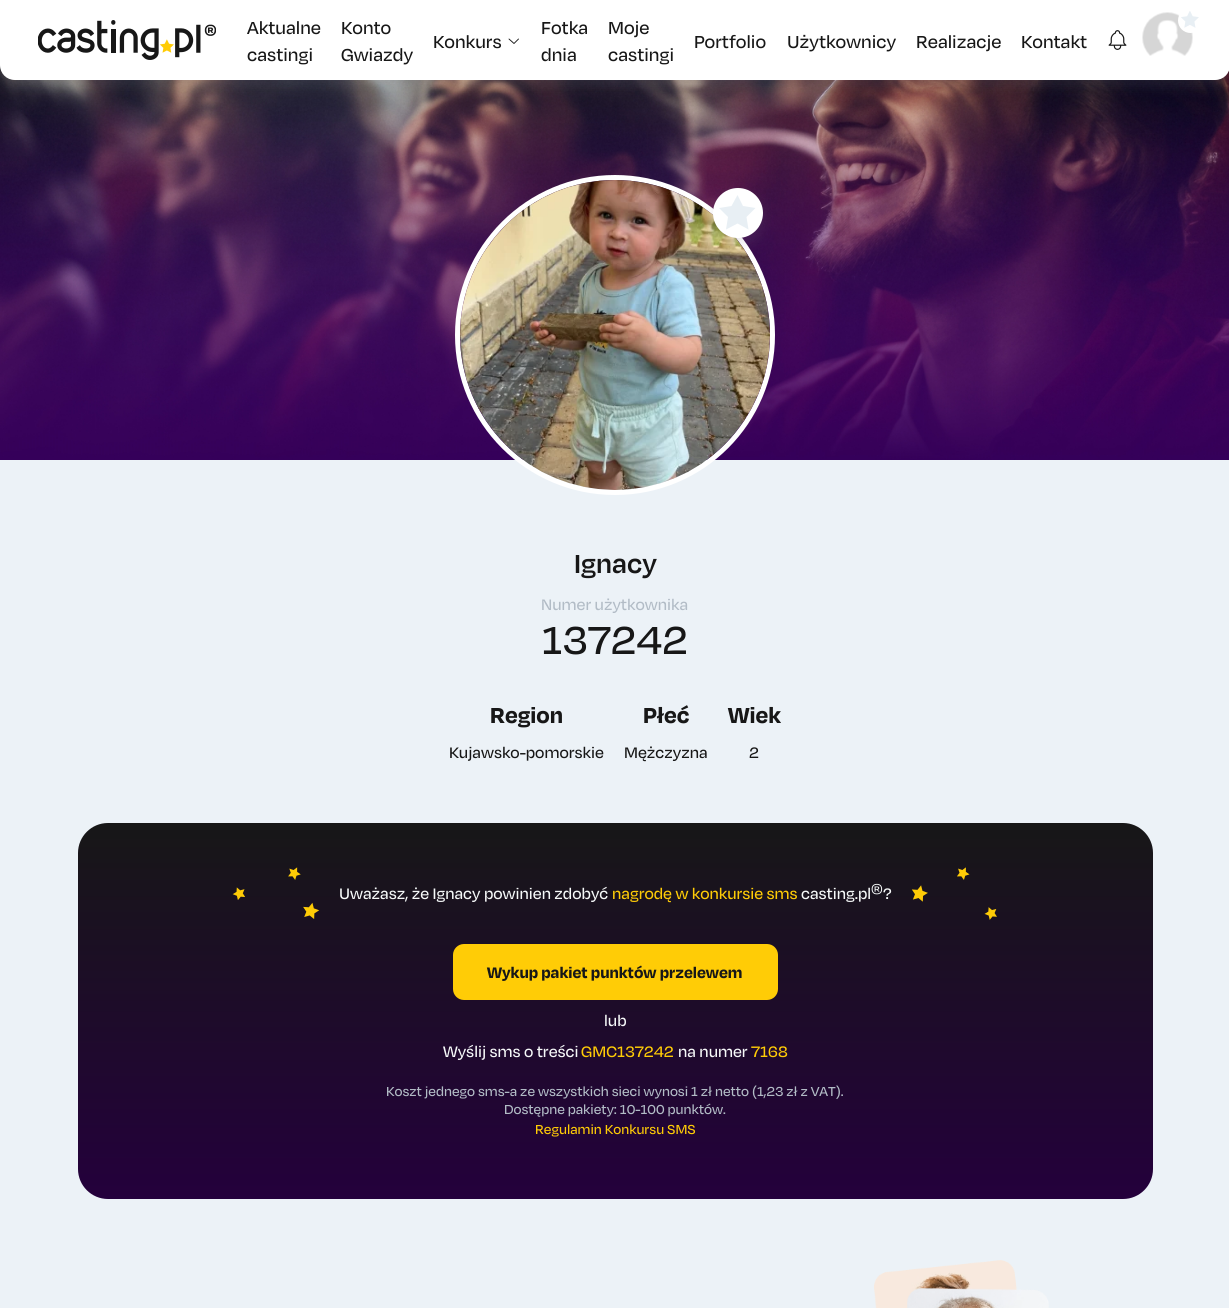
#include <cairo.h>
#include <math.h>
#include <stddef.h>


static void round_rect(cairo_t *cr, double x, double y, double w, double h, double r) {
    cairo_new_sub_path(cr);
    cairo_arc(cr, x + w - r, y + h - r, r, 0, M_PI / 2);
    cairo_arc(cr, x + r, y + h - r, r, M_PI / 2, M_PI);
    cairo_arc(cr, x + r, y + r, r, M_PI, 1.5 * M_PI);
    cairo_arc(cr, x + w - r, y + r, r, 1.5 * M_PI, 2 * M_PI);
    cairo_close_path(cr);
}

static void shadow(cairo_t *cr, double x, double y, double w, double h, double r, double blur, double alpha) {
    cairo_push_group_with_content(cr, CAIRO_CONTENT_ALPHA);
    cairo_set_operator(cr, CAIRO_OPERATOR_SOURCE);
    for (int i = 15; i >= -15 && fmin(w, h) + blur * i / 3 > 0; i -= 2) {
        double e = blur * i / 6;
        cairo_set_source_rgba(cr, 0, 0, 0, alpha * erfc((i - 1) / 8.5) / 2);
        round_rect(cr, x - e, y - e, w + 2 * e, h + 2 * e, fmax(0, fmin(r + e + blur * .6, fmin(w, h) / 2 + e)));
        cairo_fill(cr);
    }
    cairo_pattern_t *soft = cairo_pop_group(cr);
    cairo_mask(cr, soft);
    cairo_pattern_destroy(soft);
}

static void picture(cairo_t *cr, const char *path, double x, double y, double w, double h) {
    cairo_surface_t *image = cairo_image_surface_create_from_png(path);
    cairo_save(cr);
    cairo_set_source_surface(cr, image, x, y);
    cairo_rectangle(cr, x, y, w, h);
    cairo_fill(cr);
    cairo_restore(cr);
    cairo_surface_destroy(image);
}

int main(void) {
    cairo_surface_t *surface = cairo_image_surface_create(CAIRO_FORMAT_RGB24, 1229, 1308);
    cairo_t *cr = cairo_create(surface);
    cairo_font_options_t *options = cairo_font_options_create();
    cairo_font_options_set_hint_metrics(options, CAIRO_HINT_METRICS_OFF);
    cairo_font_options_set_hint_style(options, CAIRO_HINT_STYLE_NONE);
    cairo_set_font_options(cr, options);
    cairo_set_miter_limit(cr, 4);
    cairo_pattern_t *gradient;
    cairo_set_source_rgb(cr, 0.925, 0.949, 0.965);
    cairo_paint(cr);
    picture(cr, "img5.png", 0, 65, 1229, 395);
    cairo_set_source_rgb(cr, 0.51, 0.482, 0.549);
    shadow(cr, 0, 6, 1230, 80, 15, 6, 0.16);
    cairo_set_source_rgb(cr, 1, 1, 1);
    cairo_new_path(cr);
    cairo_move_to(cr, 0, 0);
    cairo_line_to(cr, 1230, 0);
    cairo_line_to(cr, 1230, 65);
    cairo_curve_to(cr, 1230, 73.5, 1223.5, 80, 1215, 80);
    cairo_line_to(cr, 15, 80);
    cairo_curve_to(cr, 6.5, 80, 0, 73.5, 0, 65);
    cairo_close_path(cr);
    cairo_fill(cr);
    picture(cr, "img1.png", 38, 20, 178, 40);
    cairo_select_font_face(cr, "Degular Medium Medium", CAIRO_FONT_SLANT_NORMAL, CAIRO_FONT_WEIGHT_NORMAL);
    cairo_set_font_size(cr, 20);
    cairo_set_source_rgb(cr, 0.09, 0.09, 0.09);
    cairo_move_to(cr, 247, 34);
    cairo_show_text(cr, "Aktualne");
    cairo_move_to(cr, 247, 61);
    cairo_show_text(cr, "castingi");
    cairo_move_to(cr, 341, 34);
    cairo_show_text(cr, "Konto");
    cairo_move_to(cr, 341, 61);
    cairo_show_text(cr, "Gwiazdy");
    cairo_move_to(cr, 433, 48);
    cairo_show_text(cr, "Konkurs");
    cairo_new_path(cr);
    cairo_move_to(cr, 518.5, 39);
    cairo_line_to(cr, 514, 43.5);
    cairo_line_to(cr, 509, 39);
    cairo_set_line_width(cr, 0.9);
    cairo_set_line_cap(cr, CAIRO_LINE_CAP_ROUND);
    cairo_set_line_join(cr, CAIRO_LINE_JOIN_ROUND);
    cairo_stroke(cr);
    cairo_move_to(cr, 541, 34);
    cairo_show_text(cr, "Fotka");
    cairo_move_to(cr, 541, 61);
    cairo_show_text(cr, "dnia");
    cairo_move_to(cr, 608, 34);
    cairo_show_text(cr, "Moje");
    cairo_move_to(cr, 608, 61);
    cairo_show_text(cr, "castingi");
    cairo_move_to(cr, 694, 48);
    cairo_show_text(cr, "Portfolio");
    cairo_move_to(cr, 787, 48);
    cairo_show_text(cr, "Użytkownicy");
    cairo_move_to(cr, 916, 48);
    cairo_show_text(cr, "Realizacje");
    cairo_move_to(cr, 1021, 48);
    cairo_show_text(cr, "Kontakt");
    picture(cr, "img2.png", 1108, 30, 19, 20);
    picture(cr, "img4.png", 1142, 12, 51, 44);
    cairo_set_source_rgb(cr, 1, 1, 1);
    cairo_arc(cr, 1190.5, 20.5, 12.5, 0, 2 * M_PI);
    cairo_fill(cr);
    picture(cr, "img3.png", 1181, 11, 18, 17);
    cairo_arc(cr, 615, 335, 157.5, 0, 2 * M_PI);
    cairo_set_line_width(cr, 5);
    cairo_set_line_cap(cr, CAIRO_LINE_CAP_BUTT);
    cairo_set_line_join(cr, CAIRO_LINE_JOIN_MITER);
    cairo_stroke(cr);
    picture(cr, "img6.png", 460, 180, 310, 310);
    cairo_set_source_rgb(cr, 0.51, 0.482, 0.549);
    shadow(cr, 713, 194, 50, 50, 25, 6, 0.16);
    cairo_set_source_rgb(cr, 1, 1, 1);
    cairo_arc(cr, 738, 213, 25, 0, 2 * M_PI);
    cairo_fill(cr);
    cairo_set_source_rgb(cr, 0.91, 0.937, 0.957);
    cairo_new_path(cr);
    cairo_move_to(cr, 731.5, 206);
    cairo_line_to(cr, 719, 208);
    cairo_line_to(cr, 728, 217);
    cairo_line_to(cr, 726, 229.5);
    cairo_line_to(cr, 737.5, 223.5);
    cairo_line_to(cr, 748.5, 229.5);
    cairo_line_to(cr, 746.5, 217);
    cairo_line_to(cr, 755.5, 208);
    cairo_line_to(cr, 743, 206);
    cairo_line_to(cr, 737.5, 195);
    cairo_close_path(cr);
    cairo_fill(cr);
    cairo_select_font_face(cr, "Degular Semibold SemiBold", CAIRO_FONT_SLANT_NORMAL, CAIRO_FONT_WEIGHT_NORMAL);
    cairo_set_font_size(cr, 30);
    cairo_set_source_rgb(cr, 0.09, 0.09, 0.09);
    cairo_move_to(cr, 574, 573);
    cairo_show_text(cr, "Ignacy");
    cairo_select_font_face(cr, "Degular Medium Medium", CAIRO_FONT_SLANT_NORMAL, CAIRO_FONT_WEIGHT_NORMAL);
    cairo_set_font_size(cr, 17.5);
    cairo_set_source_rgb(cr, 0.698, 0.737, 0.776);
    cairo_move_to(cr, 541, 610);
    cairo_show_text(cr, "Numer użytkownika");
    cairo_set_font_size(cr, 45);
    cairo_set_source_rgb(cr, 0.09, 0.09, 0.09);
    cairo_move_to(cr, 542, 654);
    cairo_show_text(cr, "137242");
    cairo_select_font_face(cr, "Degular", CAIRO_FONT_SLANT_NORMAL, CAIRO_FONT_WEIGHT_BOLD);
    cairo_set_font_size(cr, 25);
    cairo_move_to(cr, 490, 723);
    cairo_show_text(cr, "Region");
    cairo_select_font_face(cr, "Degular Medium Medium", CAIRO_FONT_SLANT_NORMAL, CAIRO_FONT_WEIGHT_NORMAL);
    cairo_set_font_size(cr, 17.5);
    cairo_move_to(cr, 449, 758);
    cairo_show_text(cr, "Kujawsko-pomorskie");
    cairo_select_font_face(cr, "Degular", CAIRO_FONT_SLANT_NORMAL, CAIRO_FONT_WEIGHT_BOLD);
    cairo_set_font_size(cr, 25);
    cairo_move_to(cr, 643, 723);
    cairo_show_text(cr, "Płeć");
    cairo_select_font_face(cr, "Degular Medium Medium", CAIRO_FONT_SLANT_NORMAL, CAIRO_FONT_WEIGHT_NORMAL);
    cairo_set_font_size(cr, 17.5);
    cairo_move_to(cr, 624, 758);
    cairo_show_text(cr, "Mężczyzna");
    cairo_select_font_face(cr, "Degular", CAIRO_FONT_SLANT_NORMAL, CAIRO_FONT_WEIGHT_BOLD);
    cairo_set_font_size(cr, 25);
    cairo_move_to(cr, 728, 723);
    cairo_show_text(cr, "Wiek");
    cairo_select_font_face(cr, "Degular Medium Medium", CAIRO_FONT_SLANT_NORMAL, CAIRO_FONT_WEIGHT_NORMAL);
    cairo_set_font_size(cr, 17.5);
    cairo_move_to(cr, 749, 758);
    cairo_show_text(cr, "2");
    gradient = cairo_pattern_create_linear(615, 823, 615, 1199);
    cairo_pattern_add_color_stop_rgba(gradient, 0, 0.09, 0.09, 0.09, 1);
    cairo_pattern_add_color_stop_rgba(gradient, 1, 0.141, 0, 0.235, 1);
    cairo_set_source(cr, gradient);
    cairo_pattern_destroy(gradient);
    round_rect(cr, 78, 823, 1075, 376, 30);
    cairo_fill(cr);
    picture(cr, "img7.png", 288, 867, 13, 13);
    picture(cr, "img8.png", 957, 867, 13, 13);
    picture(cr, "img9.png", 232, 887, 13, 13);
    cairo_set_source_rgb(cr, 0.961, 0.973, 0.976);
    cairo_move_to(cr, 339, 899);
    cairo_show_text(cr, "Uważasz, że Ignacy powinien zdobyć");
    cairo_set_source_rgb(cr, 1, 0.8, 0.024);
    cairo_move_to(cr, 612, 899);
    cairo_show_text(cr, "nagrodę w konkursie sms");
    cairo_set_source_rgb(cr, 0.961, 0.973, 0.976);
    cairo_move_to(cr, 801, 899);
    cairo_show_text(cr, "casting.pl");
    cairo_set_font_size(cr, 13);
    cairo_move_to(cr, 871, 893);
    cairo_show_text(cr, "®");
    cairo_set_font_size(cr, 17.5);
    cairo_move_to(cr, 883, 899);
    cairo_show_text(cr, "?");
    picture(cr, "img10.png", 911, 885, 17, 17);
    picture(cr, "img11.png", 303, 902, 17, 17);
    picture(cr, "img12.png", 984, 907, 13, 13);
    cairo_set_source_rgb(cr, 1, 0.8, 0.024);
    round_rect(cr, 453, 944, 325, 56, 11);
    cairo_fill(cr);
    cairo_select_font_face(cr, "Degular", CAIRO_FONT_SLANT_NORMAL, CAIRO_FONT_WEIGHT_BOLD);
    cairo_set_source_rgb(cr, 0.09, 0.09, 0.09);
    cairo_move_to(cr, 487, 978);
    cairo_show_text(cr, "Wykup pakiet punktów przelewem");
    cairo_select_font_face(cr, "Degular Medium Medium", CAIRO_FONT_SLANT_NORMAL, CAIRO_FONT_WEIGHT_NORMAL);
    cairo_set_source_rgb(cr, 0.961, 0.973, 0.976);
    cairo_move_to(cr, 604, 1026);
    cairo_show_text(cr, "lub");
    cairo_move_to(cr, 443, 1057);
    cairo_show_text(cr, "Wyślij sms o treści");
    cairo_set_source_rgb(cr, 1, 0.8, 0.024);
    cairo_move_to(cr, 581, 1057);
    cairo_show_text(cr, "GMC137242");
    cairo_set_source_rgb(cr, 0.961, 0.973, 0.976);
    cairo_move_to(cr, 678, 1057);
    cairo_show_text(cr, "na numer");
    cairo_set_source_rgb(cr, 1, 0.8, 0.024);
    cairo_move_to(cr, 751, 1057);
    cairo_show_text(cr, "7168");
    cairo_set_font_size(cr, 15);
    cairo_set_source_rgb(cr, 0.698, 0.737, 0.776);
    cairo_move_to(cr, 386, 1096);
    cairo_show_text(cr, "Koszt jednego sms-a ze wszystkich sieci wynosi 1 zł netto (1,23 zł z VAT).");
    cairo_move_to(cr, 504, 1114);
    cairo_show_text(cr, "Dostępne pakiety: 10-100 punktów.");
    cairo_set_source_rgb(cr, 1, 0.8, 0.024);
    cairo_move_to(cr, 535, 1134);
    cairo_show_text(cr, "Regulamin Konkursu SMS");
    picture(cr, "img13.png", 874, 1260, 175, 48);
    cairo_surface_write_to_png(surface, "page.png");
    cairo_font_options_destroy(options);
    cairo_destroy(cr);
    cairo_surface_destroy(surface);
    return 0;
}
